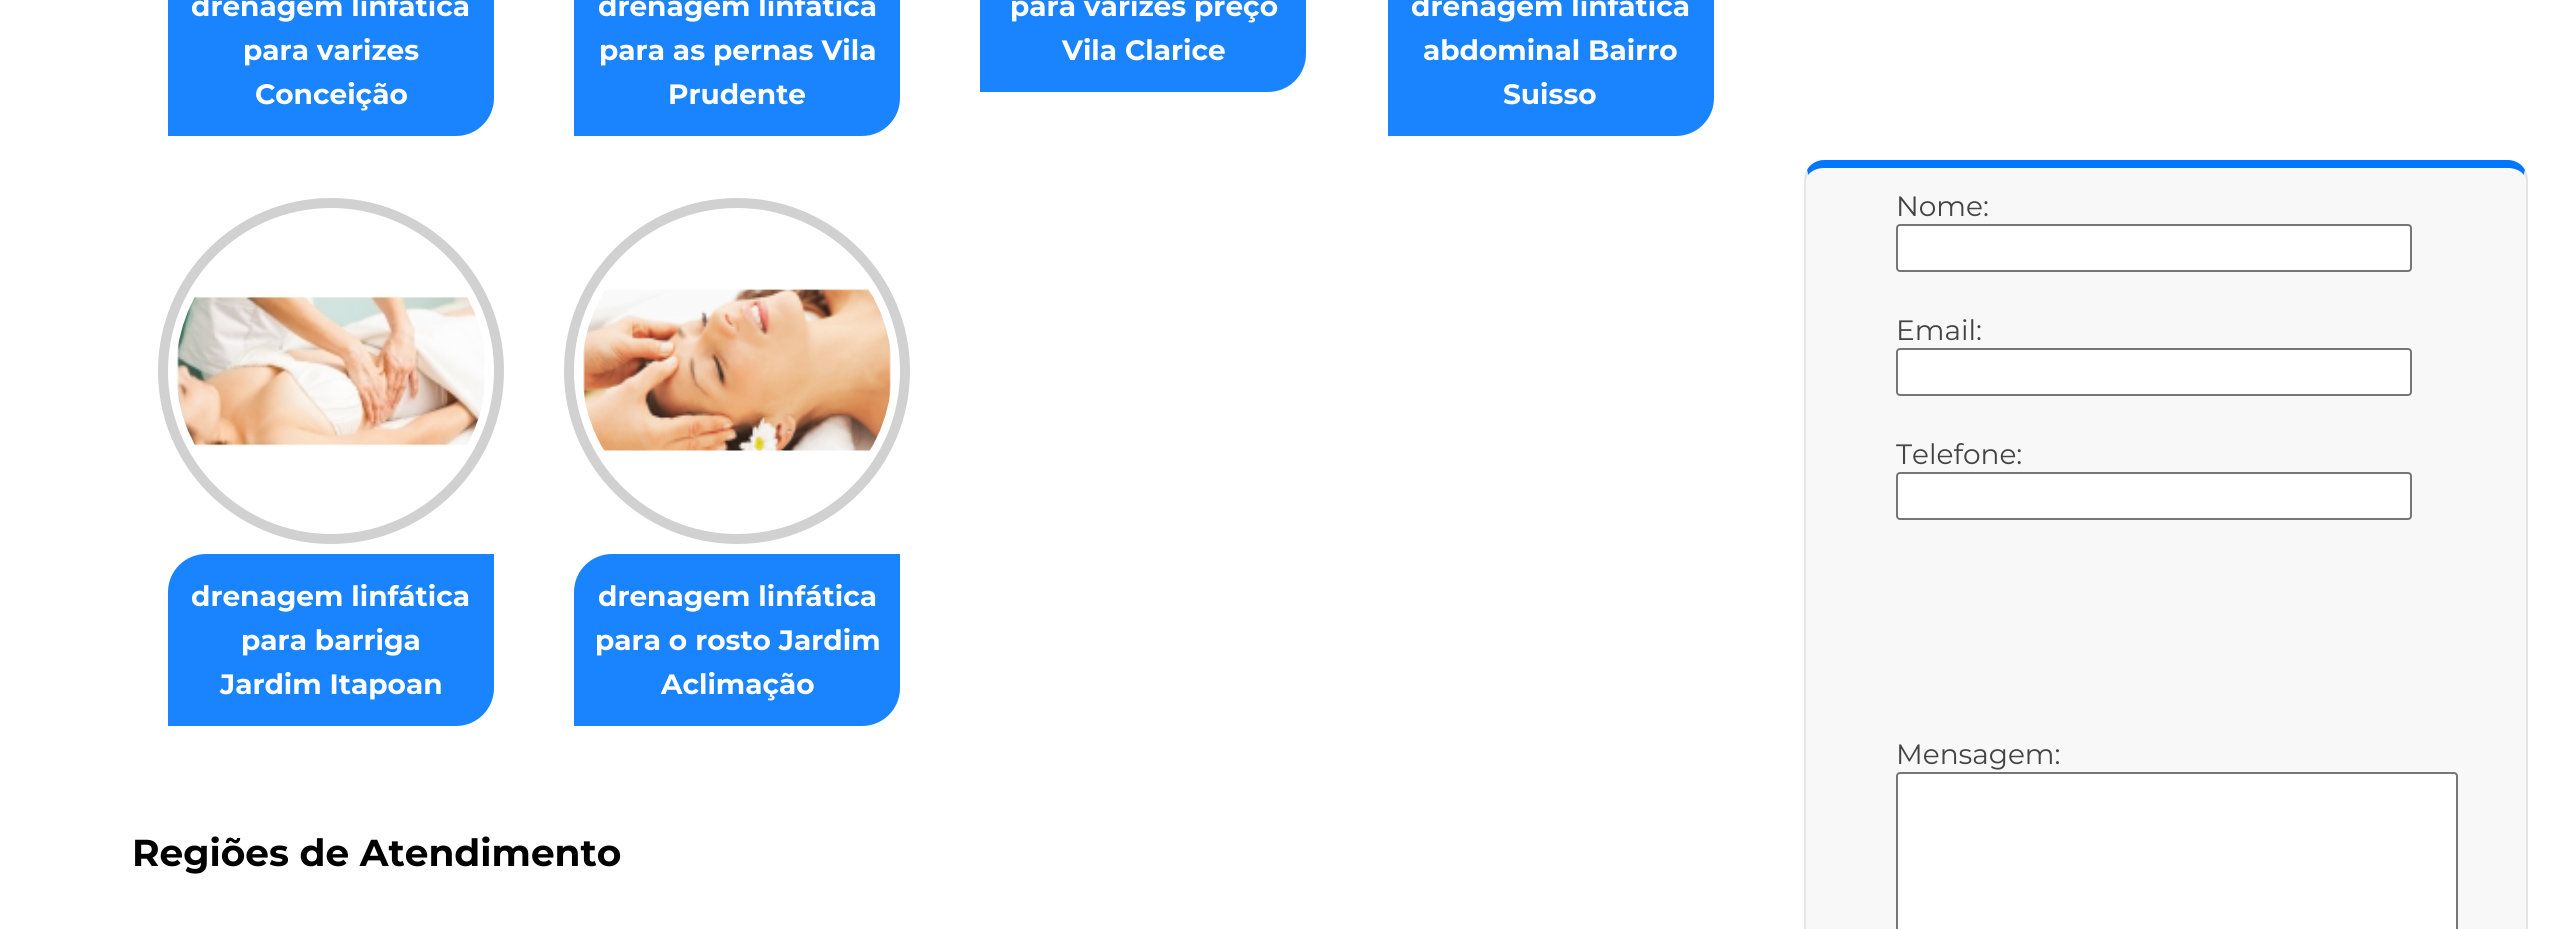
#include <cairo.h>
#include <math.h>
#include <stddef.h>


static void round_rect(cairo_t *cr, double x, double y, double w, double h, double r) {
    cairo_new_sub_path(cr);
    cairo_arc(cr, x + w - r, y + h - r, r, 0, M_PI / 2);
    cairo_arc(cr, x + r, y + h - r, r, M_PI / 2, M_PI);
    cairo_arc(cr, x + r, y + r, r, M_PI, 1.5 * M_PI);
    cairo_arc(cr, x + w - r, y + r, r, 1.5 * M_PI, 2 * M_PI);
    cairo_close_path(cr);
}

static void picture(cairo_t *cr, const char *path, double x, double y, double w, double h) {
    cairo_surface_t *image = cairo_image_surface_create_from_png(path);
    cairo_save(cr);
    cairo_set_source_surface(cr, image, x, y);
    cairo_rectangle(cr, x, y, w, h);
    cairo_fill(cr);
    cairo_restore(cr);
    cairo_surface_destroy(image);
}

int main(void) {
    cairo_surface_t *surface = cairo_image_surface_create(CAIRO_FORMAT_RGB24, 2568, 929);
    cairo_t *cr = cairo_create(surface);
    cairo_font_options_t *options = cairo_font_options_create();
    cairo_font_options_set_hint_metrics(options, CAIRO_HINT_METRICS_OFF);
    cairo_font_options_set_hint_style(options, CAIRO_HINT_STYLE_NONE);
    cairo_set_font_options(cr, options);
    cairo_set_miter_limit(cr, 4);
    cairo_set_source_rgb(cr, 1, 1, 1);
    cairo_paint(cr);
    cairo_set_source_rgb(cr, 0.102, 0.518, 1);
    cairo_new_path(cr);
    cairo_move_to(cr, 206, -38);
    cairo_line_to(cr, 494, -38);
    cairo_line_to(cr, 494, 98);
    cairo_curve_to(cr, 494, 119, 477, 136, 456, 136);
    cairo_line_to(cr, 168, 136);
    cairo_line_to(cr, 168, 0);
    cairo_curve_to(cr, 168, -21, 185, -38, 206, -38);
    cairo_close_path(cr);
    cairo_fill(cr);
    cairo_select_font_face(cr, "Montserrat", CAIRO_FONT_SLANT_NORMAL, CAIRO_FONT_WEIGHT_BOLD);
    cairo_set_font_size(cr, 28);
    cairo_set_source_rgb(cr, 1, 1, 1);
    cairo_move_to(cr, 191, 16);
    cairo_show_text(cr, "drenagem linfática");
    cairo_move_to(cr, 243, 60);
    cairo_show_text(cr, "para varizes");
    cairo_move_to(cr, 255, 104);
    cairo_show_text(cr, "Conceição");
    cairo_set_source_rgb(cr, 0.102, 0.518, 1);
    cairo_new_path(cr);
    cairo_move_to(cr, 612, -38);
    cairo_line_to(cr, 900, -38);
    cairo_line_to(cr, 900, 98);
    cairo_curve_to(cr, 900, 119, 883, 136, 862, 136);
    cairo_line_to(cr, 574, 136);
    cairo_line_to(cr, 574, 0);
    cairo_curve_to(cr, 574, -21, 591, -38, 612, -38);
    cairo_close_path(cr);
    cairo_fill(cr);
    cairo_set_source_rgb(cr, 1, 1, 1);
    cairo_move_to(cr, 598, 16);
    cairo_show_text(cr, "drenagem linfática");
    cairo_move_to(cr, 599, 60);
    cairo_show_text(cr, "para as pernas Vila");
    cairo_move_to(cr, 668, 104);
    cairo_show_text(cr, "Prudente");
    cairo_set_source_rgb(cr, 0.102, 0.518, 1);
    cairo_new_path(cr);
    cairo_move_to(cr, 1018, -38);
    cairo_line_to(cr, 1306, -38);
    cairo_line_to(cr, 1306, 54);
    cairo_curve_to(cr, 1306, 75, 1289, 92, 1268, 92);
    cairo_line_to(cr, 980, 92);
    cairo_line_to(cr, 980, 0);
    cairo_curve_to(cr, 980, -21, 997, -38, 1018, -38);
    cairo_close_path(cr);
    cairo_fill(cr);
    cairo_set_source_rgb(cr, 1, 1, 1);
    cairo_move_to(cr, 1010, 16);
    cairo_show_text(cr, "para varizes preço");
    cairo_move_to(cr, 1062, 60);
    cairo_show_text(cr, "Vila Clarice");
    cairo_set_source_rgb(cr, 0.102, 0.518, 1);
    cairo_new_path(cr);
    cairo_move_to(cr, 1426, -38);
    cairo_line_to(cr, 1714, -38);
    cairo_line_to(cr, 1714, 98);
    cairo_curve_to(cr, 1714, 119, 1697, 136, 1676, 136);
    cairo_line_to(cr, 1388, 136);
    cairo_line_to(cr, 1388, 0);
    cairo_curve_to(cr, 1388, -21, 1405, -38, 1426, -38);
    cairo_close_path(cr);
    cairo_fill(cr);
    cairo_set_source_rgb(cr, 1, 1, 1);
    cairo_move_to(cr, 1411, 16);
    cairo_show_text(cr, "drenagem linfática");
    cairo_move_to(cr, 1423, 60);
    cairo_show_text(cr, "abdominal Bairro");
    cairo_move_to(cr, 1503, 104);
    cairo_show_text(cr, "Suisso");
    cairo_new_path(cr);
    cairo_arc(cr, 331, 371, 168, 0, 2 * M_PI);
    cairo_set_source_rgb(cr, 0.82, 0.82, 0.82);
    cairo_set_line_width(cr, 10);
    cairo_stroke(cr);
    picture(cr, "img1.png", 176, 295, 309, 152);
    cairo_set_source_rgb(cr, 0.102, 0.518, 1);
    cairo_new_path(cr);
    cairo_move_to(cr, 206, 554);
    cairo_line_to(cr, 494, 554);
    cairo_line_to(cr, 494, 688);
    cairo_curve_to(cr, 494, 709, 477, 726, 456, 726);
    cairo_line_to(cr, 168, 726);
    cairo_line_to(cr, 168, 592);
    cairo_curve_to(cr, 168, 571, 185, 554, 206, 554);
    cairo_close_path(cr);
    cairo_fill(cr);
    cairo_set_source_rgb(cr, 1, 1, 1);
    cairo_move_to(cr, 191, 606);
    cairo_show_text(cr, "drenagem linfática");
    cairo_move_to(cr, 241, 650);
    cairo_show_text(cr, "para barriga");
    cairo_move_to(cr, 220, 694);
    cairo_show_text(cr, "Jardim Itapoan");
    cairo_new_path(cr);
    cairo_arc(cr, 737, 371, 168, 0, 2 * M_PI);
    cairo_set_source_rgb(cr, 0.82, 0.82, 0.82);
    cairo_stroke(cr);
    picture(cr, "img2.png", 583, 289, 308, 162);
    cairo_set_source_rgb(cr, 0.102, 0.518, 1);
    cairo_new_path(cr);
    cairo_move_to(cr, 612, 554);
    cairo_line_to(cr, 900, 554);
    cairo_line_to(cr, 900, 688);
    cairo_curve_to(cr, 900, 709, 883, 726, 862, 726);
    cairo_line_to(cr, 574, 726);
    cairo_line_to(cr, 574, 592);
    cairo_curve_to(cr, 574, 571, 591, 554, 612, 554);
    cairo_close_path(cr);
    cairo_fill(cr);
    cairo_set_source_rgb(cr, 1, 1, 1);
    cairo_move_to(cr, 598, 606);
    cairo_show_text(cr, "drenagem linfática");
    cairo_move_to(cr, 595, 650);
    cairo_show_text(cr, "para o rosto Jardim");
    cairo_move_to(cr, 661, 694);
    cairo_show_text(cr, "Aclimação");
    cairo_set_source_rgb(cr, 0.969, 0.969, 0.969);
    cairo_new_path(cr);
    cairo_move_to(cr, 1824, 168);
    cairo_line_to(cr, 2508, 168);
    cairo_curve_to(cr, 2518, 168, 2526, 173, 2526, 180);
    cairo_line_to(cr, 2526, 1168);
    cairo_curve_to(cr, 2526, 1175, 2518, 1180, 2508, 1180);
    cairo_line_to(cr, 1824, 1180);
    cairo_curve_to(cr, 1814, 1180, 1806, 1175, 1806, 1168);
    cairo_line_to(cr, 1806, 180);
    cairo_curve_to(cr, 1806, 173, 1814, 168, 1824, 168);
    cairo_close_path(cr);
    cairo_fill(cr);
    cairo_set_source_rgb(cr, 0.004, 0.463, 1);
    cairo_new_path(cr);
    cairo_move_to(cr, 1824, 160);
    cairo_curve_to(cr, 1817, 160, 1810, 164, 1807, 170);
    cairo_line_to(cr, 1808, 175);
    cairo_curve_to(cr, 1811, 171, 1817, 168, 1824, 168);
    cairo_line_to(cr, 2508, 168);
    cairo_curve_to(cr, 2515, 168, 2521, 171, 2524, 175);
    cairo_line_to(cr, 2525, 170);
    cairo_curve_to(cr, 2522, 164, 2515, 160, 2508, 160);
    cairo_close_path(cr);
    cairo_fill(cr);
    cairo_set_source_rgb(cr, 0.898, 0.898, 0.898);
    cairo_new_path(cr);
    cairo_move_to(cr, 2528, 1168);
    cairo_line_to(cr, 2528, 180);
    cairo_curve_to(cr, 2528, 176, 2527, 173, 2525, 170);
    cairo_line_to(cr, 2524, 175);
    cairo_curve_to(cr, 2525, 176, 2526, 178, 2526, 180);
    cairo_line_to(cr, 2526, 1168);
    cairo_curve_to(cr, 2526, 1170, 2525, 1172, 2524, 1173);
    cairo_line_to(cr, 2525, 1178);
    cairo_curve_to(cr, 2527, 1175, 2528, 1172, 2528, 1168);
    cairo_close_path(cr);
    cairo_fill(cr);
    cairo_new_path(cr);
    cairo_move_to(cr, 1804, 180);
    cairo_line_to(cr, 1804, 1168);
    cairo_curve_to(cr, 1804, 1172, 1805, 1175, 1807, 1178);
    cairo_line_to(cr, 1808, 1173);
    cairo_curve_to(cr, 1807, 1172, 1806, 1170, 1806, 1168);
    cairo_line_to(cr, 1806, 180);
    cairo_curve_to(cr, 1806, 178, 1807, 176, 1808, 175);
    cairo_line_to(cr, 1807, 170);
    cairo_curve_to(cr, 1805, 173, 1804, 176, 1804, 180);
    cairo_close_path(cr);
    cairo_fill(cr);
    cairo_select_font_face(cr, "Montserrat", CAIRO_FONT_SLANT_NORMAL, CAIRO_FONT_WEIGHT_NORMAL);
    cairo_set_source_rgb(cr, 0.267, 0.267, 0.267);
    cairo_move_to(cr, 1896, 216);
    cairo_show_text(cr, "Nome:");
    cairo_set_source_rgb(cr, 1, 1, 1);
    round_rect(cr, 1897, 225, 514, 46, 3);
    cairo_fill_preserve(cr);
    cairo_set_source_rgb(cr, 0.463, 0.463, 0.463);
    cairo_set_line_width(cr, 2);
    cairo_stroke(cr);
    cairo_set_source_rgb(cr, 0.267, 0.267, 0.267);
    cairo_move_to(cr, 1896, 340);
    cairo_show_text(cr, "Email:");
    cairo_set_source_rgb(cr, 1, 1, 1);
    round_rect(cr, 1897, 349, 514, 46, 3);
    cairo_fill_preserve(cr);
    cairo_set_source_rgb(cr, 0.463, 0.463, 0.463);
    cairo_stroke(cr);
    cairo_set_source_rgb(cr, 0.267, 0.267, 0.267);
    cairo_move_to(cr, 1896, 464);
    cairo_show_text(cr, "Telefone:");
    cairo_set_source_rgb(cr, 1, 1, 1);
    round_rect(cr, 1897, 473, 514, 46, 3);
    cairo_fill_preserve(cr);
    cairo_set_source_rgb(cr, 0.463, 0.463, 0.463);
    cairo_stroke(cr);
    cairo_set_source_rgb(cr, 0.267, 0.267, 0.267);
    cairo_move_to(cr, 1896, 764);
    cairo_show_text(cr, "Mensagem:");
    cairo_set_source_rgb(cr, 1, 1, 1);
    round_rect(cr, 1897, 773, 560, 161, 3);
    cairo_fill_preserve(cr);
    cairo_set_source_rgb(cr, 0.463, 0.463, 0.463);
    cairo_stroke(cr);
    cairo_select_font_face(cr, "Montserrat", CAIRO_FONT_SLANT_NORMAL, CAIRO_FONT_WEIGHT_BOLD);
    cairo_set_font_size(cr, 37.5);
    cairo_set_source_rgb(cr, 0, 0, 0);
    cairo_move_to(cr, 132, 866);
    cairo_show_text(cr, "Regiões de Atendimento");
    cairo_surface_write_to_png(surface, "page.png");
    cairo_font_options_destroy(options);
    cairo_destroy(cr);
    cairo_surface_destroy(surface);
    return 0;
}
